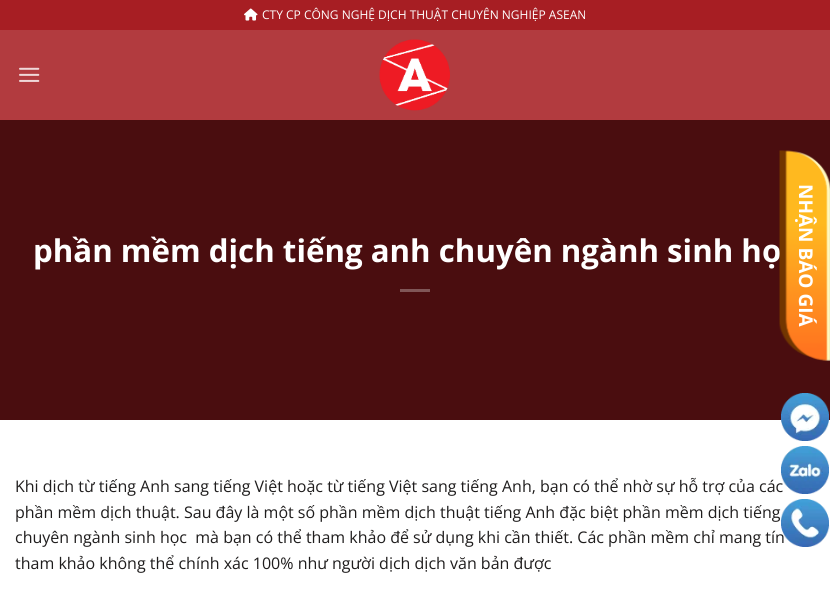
#include <cairo.h>
#include <math.h>
#include <stddef.h>


static void picture(cairo_t *cr, const char *path, double x, double y, double w, double h) {
    cairo_surface_t *image = cairo_image_surface_create_from_png(path);
    cairo_save(cr);
    cairo_set_source_surface(cr, image, x, y);
    cairo_rectangle(cr, x, y, w, h);
    cairo_fill(cr);
    cairo_restore(cr);
    cairo_surface_destroy(image);
}

int main(void) {
    cairo_surface_t *surface = cairo_image_surface_create(CAIRO_FORMAT_RGB24, 830, 596);
    cairo_t *cr = cairo_create(surface);
    cairo_font_options_t *options = cairo_font_options_create();
    cairo_font_options_set_hint_metrics(options, CAIRO_HINT_METRICS_OFF);
    cairo_font_options_set_hint_style(options, CAIRO_HINT_STYLE_NONE);
    cairo_set_font_options(cr, options);
    cairo_set_miter_limit(cr, 4);
    cairo_set_source_rgb(cr, 1, 1, 1);
    cairo_paint(cr);
    cairo_set_source_rgb(cr, 0.655, 0.118, 0.137);
    cairo_rectangle(cr, 0, 0, 830, 30);
    cairo_fill(cr);
    picture(cr, "img1.png", 244, 8, 14, 13);
    cairo_select_font_face(cr, "Open Sans", CAIRO_FONT_SLANT_NORMAL, CAIRO_FONT_WEIGHT_NORMAL);
    cairo_set_font_size(cr, 12);
    cairo_set_source_rgb(cr, 1, 1, 1);
    cairo_move_to(cr, 262, 19);
    cairo_show_text(cr, "CTY CP CÔNG NGHỆ DỊCH THUẬT CHUYÊN NGHIỆP ASEAN");
    cairo_set_source_rgb(cr, 0.698, 0.231, 0.247);
    cairo_rectangle(cr, 0, 30, 830, 90);
    cairo_fill(cr);
    picture(cr, "img2.png", 19, 67, 21, 15);
    picture(cr, "img3.png", 379, 39, 71, 72);
    cairo_set_source_rgb(cr, 0.29, 0.051, 0.059);
    cairo_rectangle(cr, 0, 120, 830, 300);
    cairo_fill(cr);
    cairo_select_font_face(cr, "Open Sans", CAIRO_FONT_SLANT_NORMAL, CAIRO_FONT_WEIGHT_BOLD);
    cairo_set_font_size(cr, 31.25);
    cairo_set_source_rgb(cr, 1, 1, 1);
    cairo_move_to(cr, 33, 262);
    cairo_show_text(cr, "phần mềm dịch tiếng anh chuyên ngành sinh họ");
    cairo_set_source_rgb(cr, 0.502, 0.337, 0.341);
    cairo_rectangle(cr, 400, 289, 30, 3);
    cairo_fill(cr);
    picture(cr, "img4.png", 779, 150, 51, 211);
    cairo_set_font_size(cr, 19);
    cairo_set_source_rgb(cr, 1, 1, 1);
    cairo_save(cr);
    cairo_translate(cr, 799, 184);
    cairo_rotate(cr, 90 * M_PI / 180);
    cairo_move_to(cr, 0, 0);
    cairo_show_text(cr, "NHẬN BÁO GIÁ");
    cairo_restore(cr);
    picture(cr, "img5.png", 781, 393, 48, 48);
    cairo_select_font_face(cr, "Open Sans", CAIRO_FONT_SLANT_NORMAL, CAIRO_FONT_WEIGHT_NORMAL);
    cairo_set_font_size(cr, 16);
    cairo_set_source_rgb(cr, 0.122, 0.114, 0.114);
    cairo_move_to(cr, 15, 492);
    cairo_show_text(cr, "Khi dịch từ tiếng Anh sang tiếng Việt hoặc từ tiếng Việt sang tiếng Anh, bạn có thể nhờ sự hỗ trợ của các");
    picture(cr, "img6.png", 781, 446, 48, 48);
    cairo_move_to(cr, 15, 518);
    cairo_show_text(cr, "phần mềm dịch thuật. Sau đây là một số phần mềm dịch thuật tiếng Anh đặc biệt phần mềm dịch tiếng");
    cairo_move_to(cr, 15, 543);
    cairo_show_text(cr, "chuyên ngành sinh học  mà bạn có thể tham khảo để sử dụng khi cần thiết. Các phần mềm chỉ mang tín");
    picture(cr, "img7.png", 780, 499, 50, 48);
    cairo_move_to(cr, 15, 569);
    cairo_show_text(cr, "tham khảo không thể chính xác 100% như người dịch dịch văn bản được");
    cairo_surface_write_to_png(surface, "page.png");
    cairo_font_options_destroy(options);
    cairo_destroy(cr);
    cairo_surface_destroy(surface);
    return 0;
}
